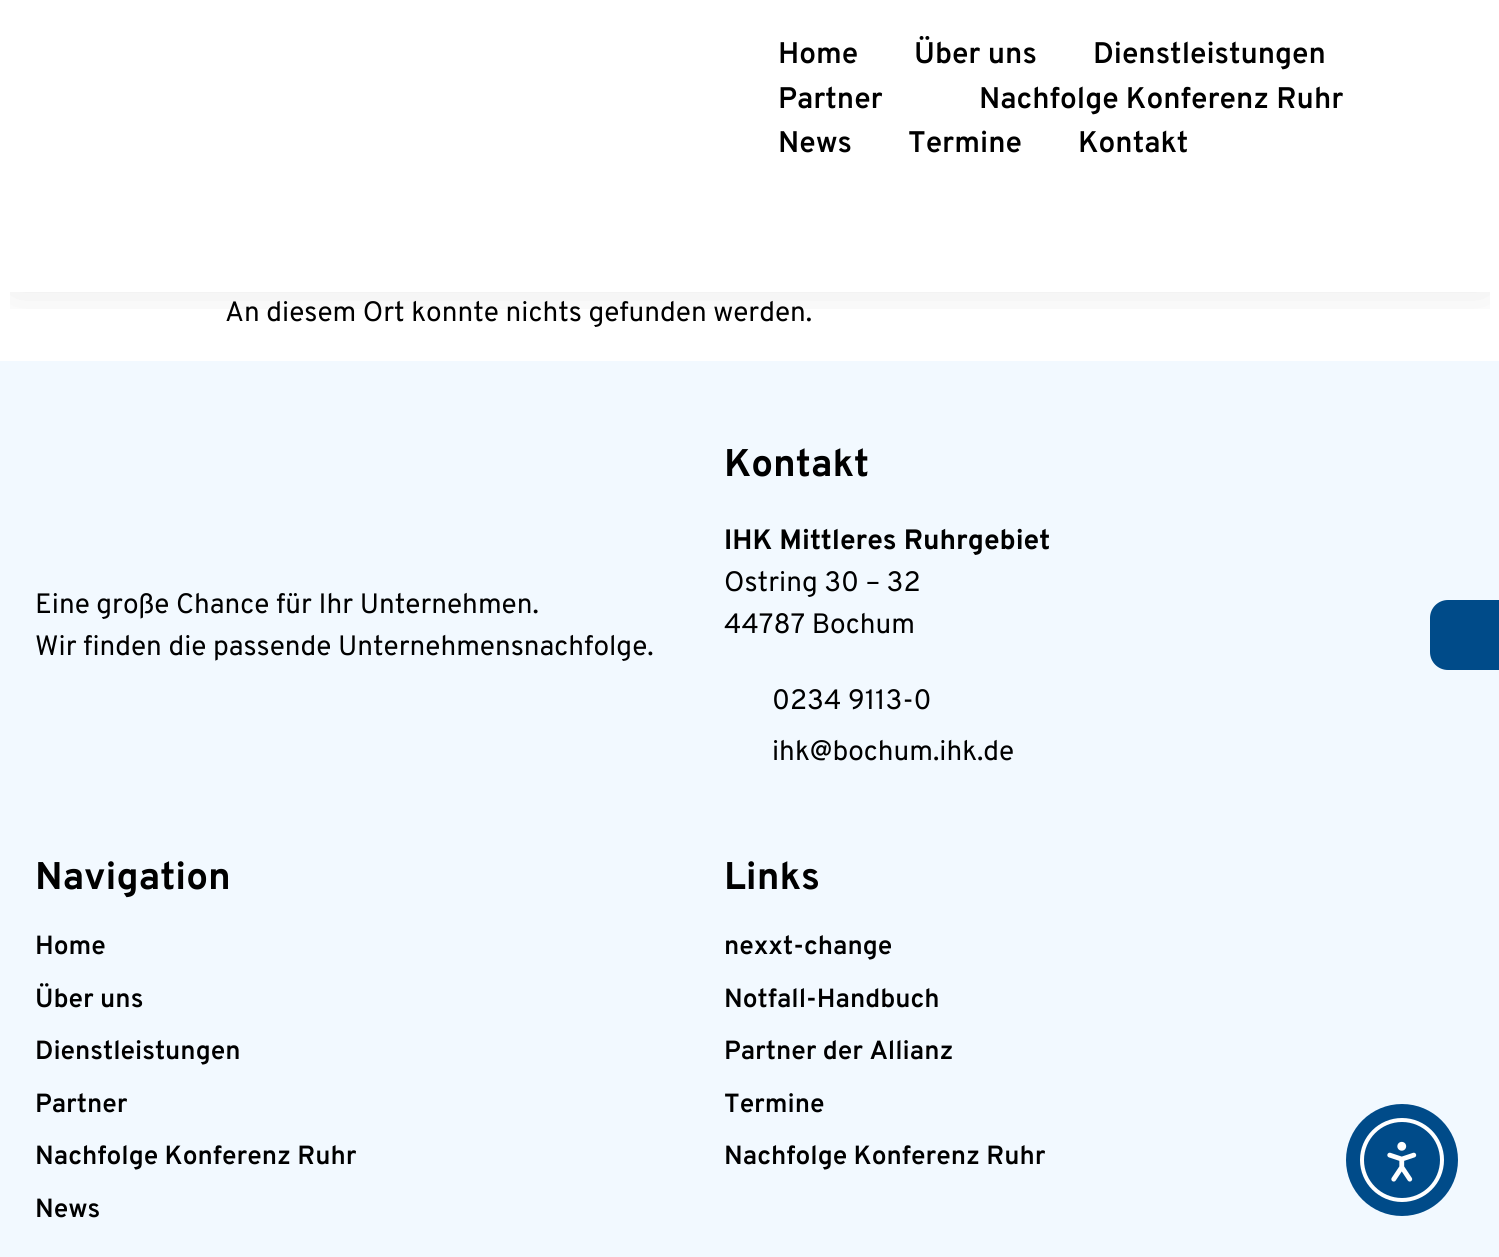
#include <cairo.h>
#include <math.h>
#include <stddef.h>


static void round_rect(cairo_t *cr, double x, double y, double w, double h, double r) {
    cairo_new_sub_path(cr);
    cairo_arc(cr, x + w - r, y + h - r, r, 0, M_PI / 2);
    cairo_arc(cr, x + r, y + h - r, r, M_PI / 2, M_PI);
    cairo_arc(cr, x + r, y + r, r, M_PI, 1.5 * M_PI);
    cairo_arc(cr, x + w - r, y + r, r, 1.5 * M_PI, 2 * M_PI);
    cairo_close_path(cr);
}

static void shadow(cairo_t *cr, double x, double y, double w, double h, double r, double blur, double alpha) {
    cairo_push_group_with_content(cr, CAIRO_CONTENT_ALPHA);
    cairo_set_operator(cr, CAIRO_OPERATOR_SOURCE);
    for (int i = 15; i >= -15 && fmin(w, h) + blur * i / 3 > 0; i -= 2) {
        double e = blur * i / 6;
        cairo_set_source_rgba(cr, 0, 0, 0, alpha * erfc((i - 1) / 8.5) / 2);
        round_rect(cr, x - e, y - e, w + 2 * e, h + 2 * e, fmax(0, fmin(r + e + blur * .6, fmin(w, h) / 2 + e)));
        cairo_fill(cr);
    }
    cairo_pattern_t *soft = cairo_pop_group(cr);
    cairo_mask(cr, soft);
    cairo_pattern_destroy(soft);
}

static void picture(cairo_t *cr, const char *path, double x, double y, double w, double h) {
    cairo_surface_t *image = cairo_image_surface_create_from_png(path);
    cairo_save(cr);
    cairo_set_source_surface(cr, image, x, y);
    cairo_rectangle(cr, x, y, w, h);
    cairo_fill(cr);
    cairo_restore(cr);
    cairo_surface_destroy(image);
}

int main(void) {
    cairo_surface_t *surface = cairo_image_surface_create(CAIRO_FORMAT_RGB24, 1499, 1257);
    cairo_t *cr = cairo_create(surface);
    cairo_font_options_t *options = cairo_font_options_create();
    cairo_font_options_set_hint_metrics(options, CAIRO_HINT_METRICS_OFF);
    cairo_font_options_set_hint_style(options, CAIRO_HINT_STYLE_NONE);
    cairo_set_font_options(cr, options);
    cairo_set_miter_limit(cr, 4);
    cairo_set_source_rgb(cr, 1, 1, 1);
    cairo_paint(cr);
    cairo_save(cr);
    cairo_rectangle(cr, 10, 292, 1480, 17);
    cairo_clip(cr);
    cairo_set_source_rgb(cr, 0, 0, 0);
    shadow(cr, 12, 21, 1476, 268, 0, 23.5, 0.1);
    cairo_restore(cr);
    cairo_select_font_face(cr, "Overpass SemiBold", CAIRO_FONT_SLANT_NORMAL, CAIRO_FONT_WEIGHT_NORMAL);
    cairo_set_font_size(cr, 29.75);
    cairo_set_source_rgb(cr, 0, 0, 0);
    cairo_move_to(cr, 778, 63);
    cairo_show_text(cr, "Home");
    cairo_move_to(cr, 914, 63);
    cairo_show_text(cr, "Über uns");
    cairo_move_to(cr, 1093, 63);
    cairo_show_text(cr, "Dienstleistungen");
    cairo_move_to(cr, 778, 108);
    cairo_show_text(cr, "Partner");
    cairo_move_to(cr, 979, 108);
    cairo_show_text(cr, "Nachfolge Konferenz Ruhr");
    cairo_move_to(cr, 778, 152);
    cairo_show_text(cr, "News");
    cairo_move_to(cr, 908, 152);
    cairo_show_text(cr, "Termine");
    cairo_move_to(cr, 1078, 152);
    cairo_show_text(cr, "Kontakt");
    cairo_select_font_face(cr, "Overpass", CAIRO_FONT_SLANT_NORMAL, CAIRO_FONT_WEIGHT_NORMAL);
    cairo_set_font_size(cr, 28);
    cairo_move_to(cr, 225, 321);
    cairo_show_text(cr, "An diesem Ort konnte nichts gefunden werden.");
    cairo_set_source_rgb(cr, 0.949, 0.976, 1);
    cairo_rectangle(cr, 0, 361, 1499, 896);
    cairo_fill(cr);
    cairo_set_source_rgb(cr, 0, 0, 0);
    cairo_move_to(cr, 35, 613);
    cairo_show_text(cr, "Eine große Chance für Ihr Unternehmen.");
    cairo_move_to(cr, 35, 655);
    cairo_show_text(cr, "Wir finden die passende Unternehmensnachfolge.");
    cairo_select_font_face(cr, "Overpass", CAIRO_FONT_SLANT_NORMAL, CAIRO_FONT_WEIGHT_BOLD);
    cairo_set_font_size(cr, 38.5);
    cairo_move_to(cr, 724, 476);
    cairo_show_text(cr, "Kontakt");
    cairo_set_font_size(cr, 28);
    cairo_move_to(cr, 724, 549);
    cairo_show_text(cr, "IHK Mittleres Ruhrgebiet");
    cairo_select_font_face(cr, "Overpass", CAIRO_FONT_SLANT_NORMAL, CAIRO_FONT_WEIGHT_NORMAL);
    cairo_move_to(cr, 724, 591);
    cairo_show_text(cr, "Ostring 30 – 32");
    cairo_move_to(cr, 724, 633);
    cairo_show_text(cr, "44787 Bochum");
    cairo_move_to(cr, 772, 709);
    cairo_show_text(cr, "0234 9113-0");
    cairo_move_to(cr, 772, 760);
    cairo_show_text(cr, "ihk@bochum.ihk.de");
    cairo_select_font_face(cr, "Overpass", CAIRO_FONT_SLANT_NORMAL, CAIRO_FONT_WEIGHT_BOLD);
    cairo_set_font_size(cr, 38.5);
    cairo_move_to(cr, 35, 889);
    cairo_show_text(cr, "Navigation");
    cairo_select_font_face(cr, "Overpass SemiBold", CAIRO_FONT_SLANT_NORMAL, CAIRO_FONT_WEIGHT_NORMAL);
    cairo_set_font_size(cr, 26.25);
    cairo_move_to(cr, 35, 954);
    cairo_show_text(cr, "Home");
    cairo_move_to(cr, 35, 1007);
    cairo_show_text(cr, "Über uns");
    cairo_move_to(cr, 35, 1059);
    cairo_show_text(cr, "Dienstleistungen");
    cairo_move_to(cr, 35, 1112);
    cairo_show_text(cr, "Partner");
    cairo_move_to(cr, 35, 1164);
    cairo_show_text(cr, "Nachfolge Konferenz Ruhr");
    cairo_move_to(cr, 35, 1217);
    cairo_show_text(cr, "News");
    cairo_set_source_rgb(cr, 0, 0.294, 0.537);
    cairo_new_path(cr);
    cairo_move_to(cr, 1448, 600);
    cairo_line_to(cr, 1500, 600);
    cairo_line_to(cr, 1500, 670);
    cairo_line_to(cr, 1448, 670);
    cairo_curve_to(cr, 1438, 670, 1430, 662, 1430, 652);
    cairo_line_to(cr, 1430, 618);
    cairo_curve_to(cr, 1430, 608, 1438, 600, 1448, 600);
    cairo_close_path(cr);
    cairo_fill(cr);
    cairo_select_font_face(cr, "Overpass", CAIRO_FONT_SLANT_NORMAL, CAIRO_FONT_WEIGHT_BOLD);
    cairo_set_font_size(cr, 38.5);
    cairo_set_source_rgb(cr, 0, 0, 0);
    cairo_move_to(cr, 724, 889);
    cairo_show_text(cr, "Links");
    cairo_select_font_face(cr, "Overpass SemiBold", CAIRO_FONT_SLANT_NORMAL, CAIRO_FONT_WEIGHT_NORMAL);
    cairo_set_font_size(cr, 26.25);
    cairo_move_to(cr, 724, 954);
    cairo_show_text(cr, "nexxt-change");
    cairo_move_to(cr, 724, 1007);
    cairo_show_text(cr, "Notfall-Handbuch");
    cairo_move_to(cr, 724, 1059);
    cairo_show_text(cr, "Partner der Allianz");
    cairo_save(cr);
    cairo_rectangle(cr, 725, 922, 687, 263);
    cairo_clip(cr);
    cairo_move_to(cr, 724, 1112);
    cairo_show_text(cr, "Termine");
    cairo_restore(cr);
    cairo_move_to(cr, 724, 1164);
    cairo_show_text(cr, "Nachfolge Konferenz Ruhr");
    cairo_set_source_rgb(cr, 0, 0.294, 0.537);
    cairo_new_path(cr);
    cairo_arc(cr, 1402, 1160, 56, 0, 2 * M_PI);
    cairo_fill(cr);
    cairo_arc(cr, 1402, 1160, 40, 0, 2 * M_PI);
    cairo_set_source_rgb(cr, 1, 1, 1);
    cairo_set_line_width(cr, 4);
    cairo_stroke(cr);
    picture(cr, "img1.png", 1387, 1141, 30, 41);
    cairo_surface_write_to_png(surface, "page.png");
    cairo_font_options_destroy(options);
    cairo_destroy(cr);
    cairo_surface_destroy(surface);
    return 0;
}
